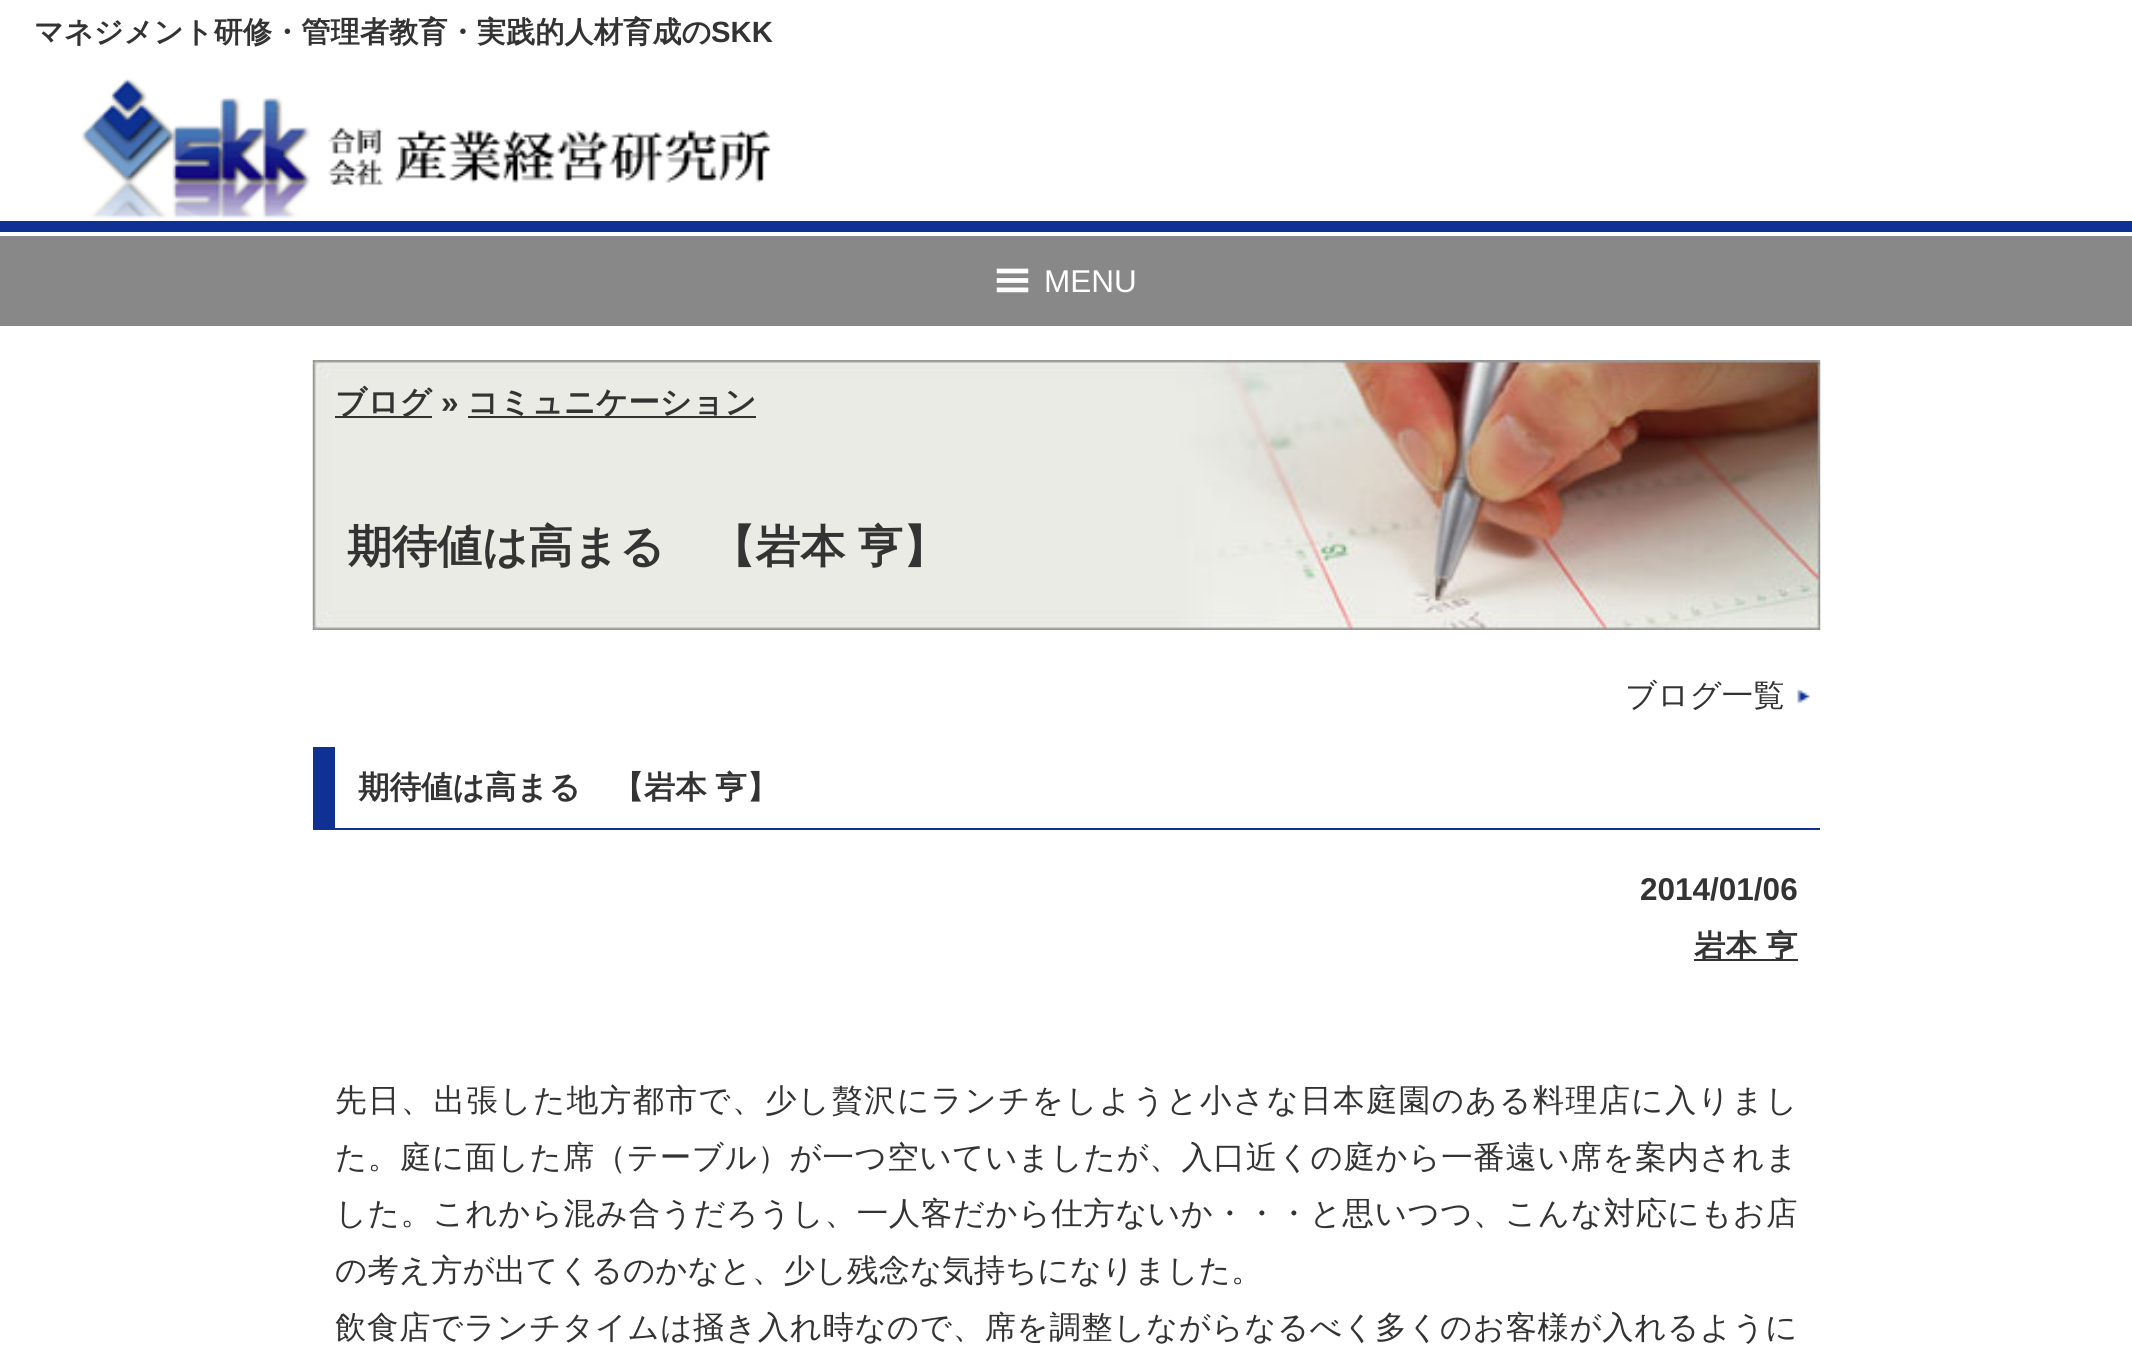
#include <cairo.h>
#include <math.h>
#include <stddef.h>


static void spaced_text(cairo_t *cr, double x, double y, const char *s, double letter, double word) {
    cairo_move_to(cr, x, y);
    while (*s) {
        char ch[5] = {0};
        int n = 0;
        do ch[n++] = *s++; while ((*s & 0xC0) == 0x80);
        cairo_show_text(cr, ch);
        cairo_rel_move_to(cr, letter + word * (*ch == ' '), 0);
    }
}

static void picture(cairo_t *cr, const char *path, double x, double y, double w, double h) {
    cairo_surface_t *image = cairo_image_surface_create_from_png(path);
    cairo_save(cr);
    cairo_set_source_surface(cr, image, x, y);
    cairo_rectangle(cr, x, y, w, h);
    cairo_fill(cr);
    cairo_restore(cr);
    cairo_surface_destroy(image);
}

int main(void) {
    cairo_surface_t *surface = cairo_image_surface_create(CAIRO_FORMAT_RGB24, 2132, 1349);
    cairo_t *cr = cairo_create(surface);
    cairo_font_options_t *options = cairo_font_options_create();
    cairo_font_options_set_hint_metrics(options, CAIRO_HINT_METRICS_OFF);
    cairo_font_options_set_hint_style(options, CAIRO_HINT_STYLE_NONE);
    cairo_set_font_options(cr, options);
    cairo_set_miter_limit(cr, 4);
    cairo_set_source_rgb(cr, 1, 1, 1);
    cairo_paint(cr);
    cairo_set_source_rgb(cr, 0.055, 0.192, 0.576);
    cairo_rectangle(cr, 0, 221, 2132, 11);
    cairo_fill(cr);
    cairo_select_font_face(cr, "WenQuanYi Zen Hei", CAIRO_FONT_SLANT_NORMAL, CAIRO_FONT_WEIGHT_BOLD);
    cairo_set_font_size(cr, 29.25);
    cairo_set_source_rgb(cr, 0.2, 0.2, 0.2);
    cairo_move_to(cr, 34, 42);
    cairo_show_text(cr, "マネジメント研修・管理者教育・実践的人材育成の");
    cairo_select_font_face(cr, "Liberation Sans", CAIRO_FONT_SLANT_NORMAL, CAIRO_FONT_WEIGHT_BOLD);
    cairo_move_to(cr, 711, 42);
    cairo_show_text(cr, "SKK");
    picture(cr, "img1.png", 81, 78, 690, 141);
    cairo_set_source_rgb(cr, 0.533, 0.533, 0.533);
    cairo_rectangle(cr, 0, 236, 2132, 90);
    cairo_fill(cr);
    picture(cr, "img2.png", 996, 268, 33, 25);
    cairo_select_font_face(cr, "Liberation Sans", CAIRO_FONT_SLANT_NORMAL, CAIRO_FONT_WEIGHT_NORMAL);
    cairo_set_font_size(cr, 31.5);
    cairo_set_source_rgb(cr, 1, 1, 1);
    cairo_move_to(cr, 1044, 292);
    cairo_show_text(cr, "MENU");
    picture(cr, "img3.png", 312, 360, 1509, 270);
    cairo_set_source_rgb(cr, 0.2, 0.2, 0.2);
    cairo_rectangle(cr, 335, 416, 97, 2);
    cairo_fill(cr);
    cairo_select_font_face(cr, "WenQuanYi Zen Hei", CAIRO_FONT_SLANT_NORMAL, CAIRO_FONT_WEIGHT_BOLD);
    cairo_move_to(cr, 335, 413);
    cairo_show_text(cr, "ブログ");
    cairo_select_font_face(cr, "Liberation Sans", CAIRO_FONT_SLANT_NORMAL, CAIRO_FONT_WEIGHT_BOLD);
    cairo_move_to(cr, 441, 413);
    cairo_show_text(cr, "»");
    cairo_rectangle(cr, 468, 416, 288, 2);
    cairo_fill(cr);
    cairo_select_font_face(cr, "WenQuanYi Zen Hei", CAIRO_FONT_SLANT_NORMAL, CAIRO_FONT_WEIGHT_BOLD);
    cairo_move_to(cr, 467, 413);
    cairo_show_text(cr, "コミュニケーション");
    cairo_set_font_size(cr, 45);
    spaced_text(cr, 347, 562, "期待値は高まる　【岩本 亨】", 0, -1);
    cairo_select_font_face(cr, "WenQuanYi Zen Hei Medium", CAIRO_FONT_SLANT_NORMAL, CAIRO_FONT_WEIGHT_NORMAL);
    cairo_set_font_size(cr, 31.5);
    cairo_move_to(cr, 1625, 706);
    cairo_show_text(cr, "ブログ一覧");
    picture(cr, "img4.png", 1797, 688, 13, 17);
    cairo_set_source_rgb(cr, 0.055, 0.192, 0.576);
    cairo_rectangle(cr, 335, 828, 1485, 2);
    cairo_fill(cr);
    cairo_rectangle(cr, 313, 747, 22, 83);
    cairo_fill(cr);
    cairo_select_font_face(cr, "WenQuanYi Zen Hei", CAIRO_FONT_SLANT_NORMAL, CAIRO_FONT_WEIGHT_BOLD);
    cairo_set_source_rgb(cr, 0.2, 0.2, 0.2);
    spaced_text(cr, 358, 798, "期待値は高まる　【岩本 亨】", 0, -1);
    cairo_select_font_face(cr, "Liberation Sans", CAIRO_FONT_SLANT_NORMAL, CAIRO_FONT_WEIGHT_BOLD);
    cairo_move_to(cr, 1640, 900);
    cairo_show_text(cr, "2014/01/06");
    cairo_rectangle(cr, 1694, 959, 104, 2);
    cairo_fill(cr);
    cairo_select_font_face(cr, "WenQuanYi Zen Hei", CAIRO_FONT_SLANT_NORMAL, CAIRO_FONT_WEIGHT_BOLD);
    cairo_move_to(cr, 1694, 957);
    cairo_show_text(cr, "岩本");
    cairo_move_to(cr, 1766, 957);
    cairo_show_text(cr, "亨");
    cairo_select_font_face(cr, "WenQuanYi Zen Hei Medium", CAIRO_FONT_SLANT_NORMAL, CAIRO_FONT_WEIGHT_NORMAL);
    spaced_text(cr, 335, 1111, "先日、出張した地方都市で、少し贅沢にランチをしようと小さな日本庭園のある料理店に入りまし", 1.4, 0);
    spaced_text(cr, 335, 1168, "た。庭に面した席（テーブル）が一つ空いていましたが、入口近くの庭から一番遠い席を案内されま", 0.6, 0);
    spaced_text(cr, 335, 1224, "した。これから混み合うだろうし、一人客だから仕方ないか・・・と思いつつ、こんな対応にもお店", 0.55, 0);
    cairo_move_to(cr, 335, 1281);
    cairo_show_text(cr, "の考え方が出てくるのかなと、少し残念な気持ちになりました。");
    spaced_text(cr, 335, 1338, "飲食店でランチタイムは掻き入れ時なので、席を調整しながらなるべく多くのお客様が入れるように", 0.5, 0);
    cairo_surface_write_to_png(surface, "page.png");
    cairo_font_options_destroy(options);
    cairo_destroy(cr);
    cairo_surface_destroy(surface);
    return 0;
}
